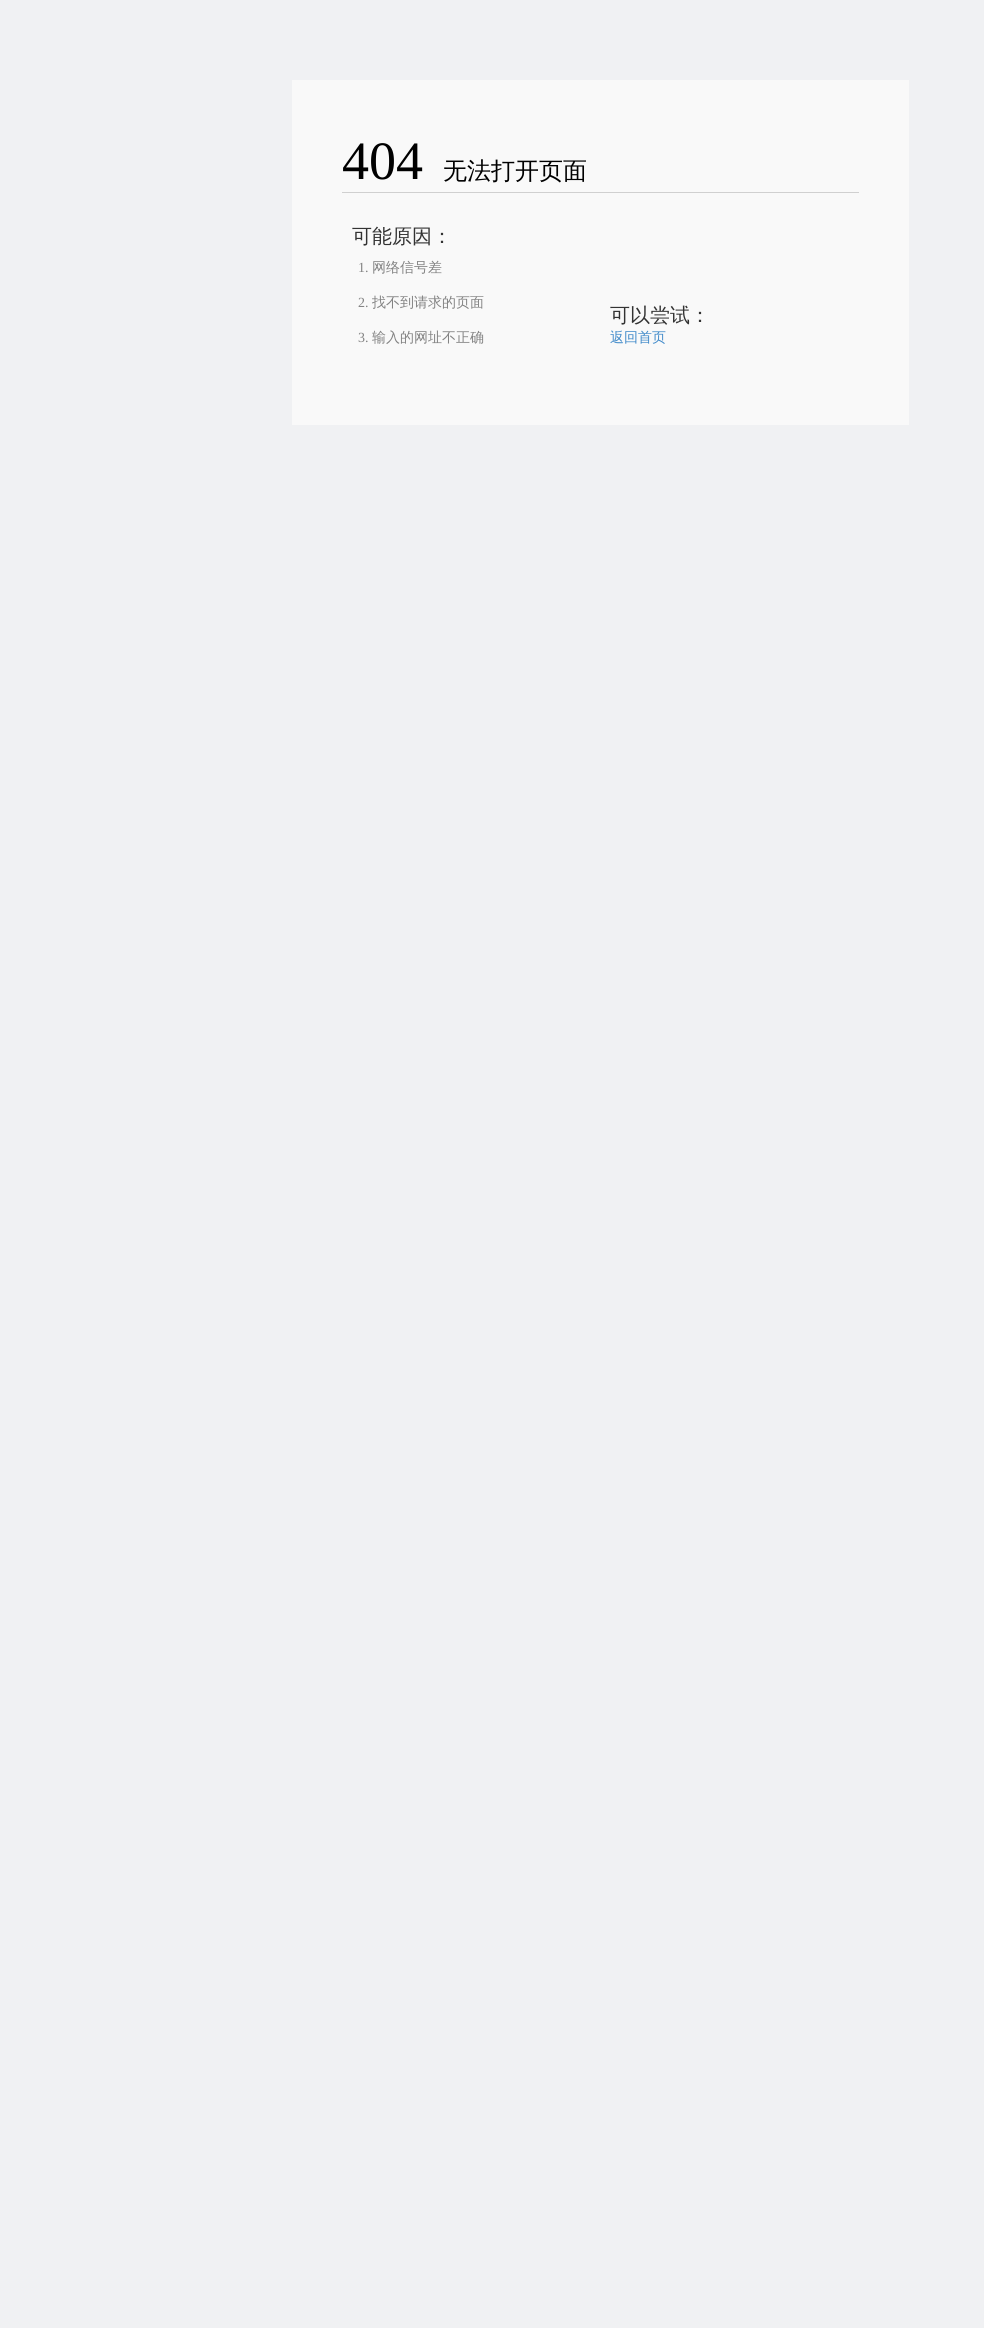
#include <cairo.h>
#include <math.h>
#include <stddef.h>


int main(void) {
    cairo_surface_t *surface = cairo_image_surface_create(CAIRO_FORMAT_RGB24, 984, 2328);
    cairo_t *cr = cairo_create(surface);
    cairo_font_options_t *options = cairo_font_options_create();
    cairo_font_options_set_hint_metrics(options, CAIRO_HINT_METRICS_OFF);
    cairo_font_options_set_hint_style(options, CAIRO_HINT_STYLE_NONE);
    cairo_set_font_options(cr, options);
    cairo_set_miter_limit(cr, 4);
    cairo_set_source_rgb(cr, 0.941, 0.945, 0.953);
    cairo_paint(cr);
    cairo_set_source_rgb(cr, 0.976, 0.976, 0.976);
    cairo_rectangle(cr, 292, 80, 617, 345);
    cairo_fill(cr);
    cairo_set_source_rgb(cr, 0.816, 0.816, 0.816);
    cairo_rectangle(cr, 342, 192, 517, 1);
    cairo_fill(cr);
    cairo_select_font_face(cr, "Liberation Serif", CAIRO_FONT_SLANT_NORMAL, CAIRO_FONT_WEIGHT_NORMAL);
    cairo_set_font_size(cr, 54);
    cairo_set_source_rgb(cr, 0, 0, 0);
    cairo_move_to(cr, 342, 179);
    cairo_show_text(cr, "404");
    cairo_select_font_face(cr, "WenQuanYi Zen Hei Medium", CAIRO_FONT_SLANT_NORMAL, CAIRO_FONT_WEIGHT_NORMAL);
    cairo_set_font_size(cr, 24);
    cairo_move_to(cr, 443, 179);
    cairo_show_text(cr, "无法打开页面");
    cairo_set_font_size(cr, 20);
    cairo_set_source_rgb(cr, 0.2, 0.2, 0.2);
    cairo_move_to(cr, 352, 243);
    cairo_show_text(cr, "可能原因：");
    cairo_select_font_face(cr, "Liberation Serif", CAIRO_FONT_SLANT_NORMAL, CAIRO_FONT_WEIGHT_NORMAL);
    cairo_set_font_size(cr, 14);
    cairo_set_source_rgb(cr, 0.514, 0.514, 0.514);
    cairo_move_to(cr, 358, 272);
    cairo_show_text(cr, "1.");
    cairo_select_font_face(cr, "WenQuanYi Zen Hei Medium", CAIRO_FONT_SLANT_NORMAL, CAIRO_FONT_WEIGHT_NORMAL);
    cairo_move_to(cr, 372, 272);
    cairo_show_text(cr, "网络信号差");
    cairo_select_font_face(cr, "Liberation Serif", CAIRO_FONT_SLANT_NORMAL, CAIRO_FONT_WEIGHT_NORMAL);
    cairo_move_to(cr, 358, 307);
    cairo_show_text(cr, "2.");
    cairo_select_font_face(cr, "WenQuanYi Zen Hei Medium", CAIRO_FONT_SLANT_NORMAL, CAIRO_FONT_WEIGHT_NORMAL);
    cairo_move_to(cr, 372, 307);
    cairo_show_text(cr, "找不到请求的页面");
    cairo_select_font_face(cr, "Liberation Serif", CAIRO_FONT_SLANT_NORMAL, CAIRO_FONT_WEIGHT_NORMAL);
    cairo_move_to(cr, 358, 342);
    cairo_show_text(cr, "3.");
    cairo_select_font_face(cr, "WenQuanYi Zen Hei Medium", CAIRO_FONT_SLANT_NORMAL, CAIRO_FONT_WEIGHT_NORMAL);
    cairo_move_to(cr, 372, 342);
    cairo_show_text(cr, "输入的网址不正确");
    cairo_set_font_size(cr, 20);
    cairo_set_source_rgb(cr, 0.2, 0.2, 0.2);
    cairo_move_to(cr, 610, 322);
    cairo_show_text(cr, "可以尝试：");
    cairo_set_font_size(cr, 14);
    cairo_set_source_rgb(cr, 0.259, 0.545, 0.792);
    cairo_move_to(cr, 610, 342);
    cairo_show_text(cr, "返回首页");
    cairo_surface_write_to_png(surface, "page.png");
    cairo_font_options_destroy(options);
    cairo_destroy(cr);
    cairo_surface_destroy(surface);
    return 0;
}
